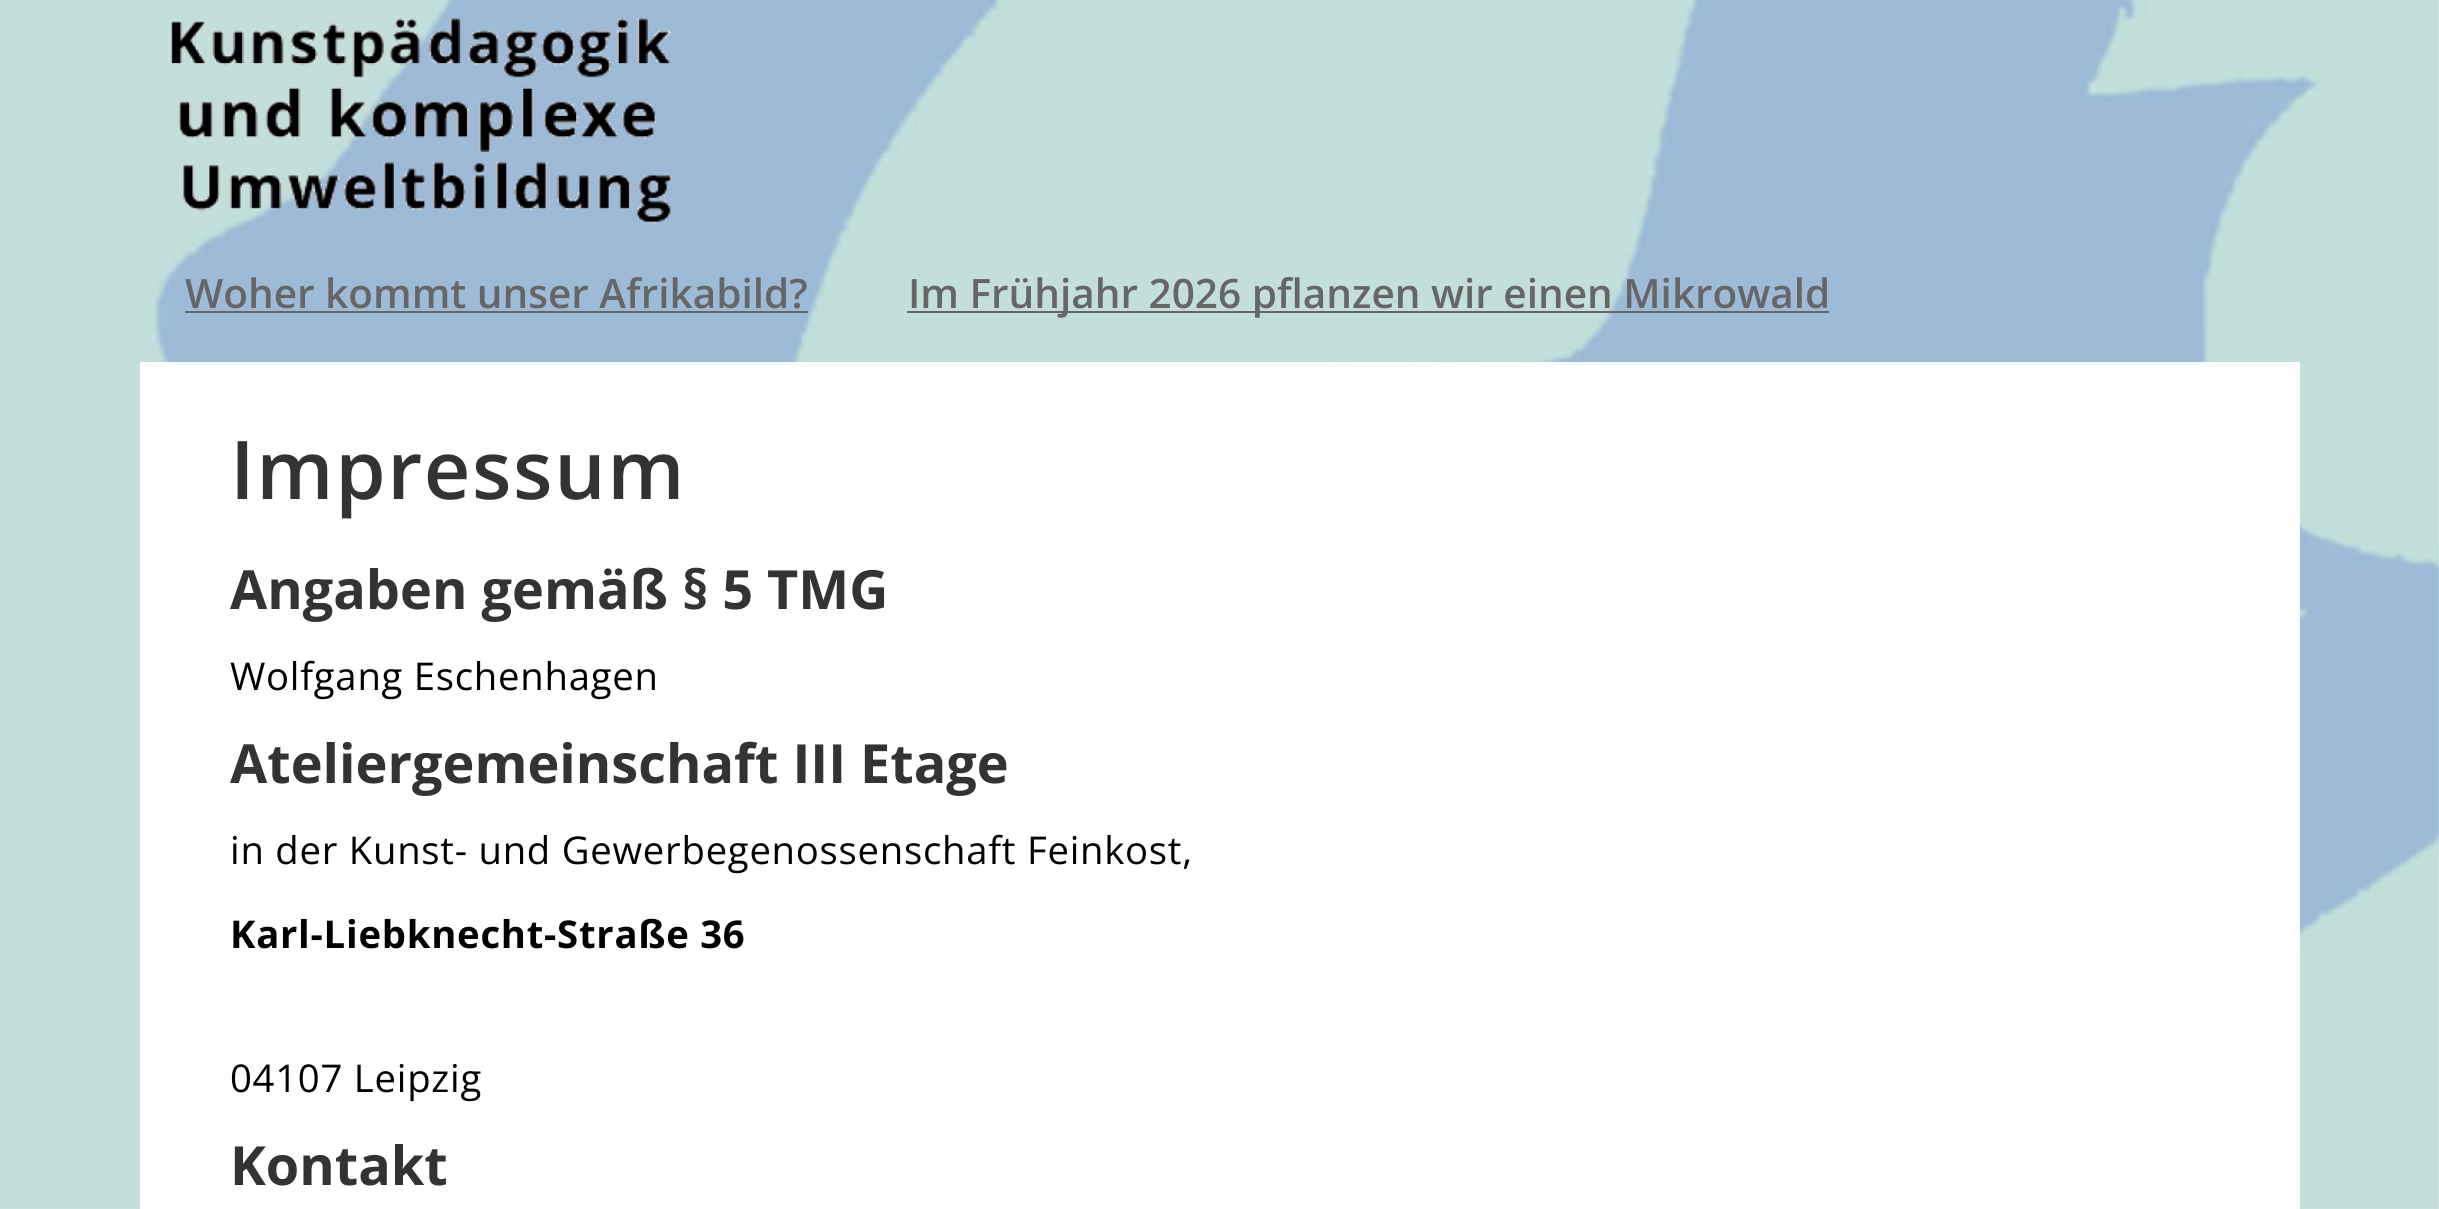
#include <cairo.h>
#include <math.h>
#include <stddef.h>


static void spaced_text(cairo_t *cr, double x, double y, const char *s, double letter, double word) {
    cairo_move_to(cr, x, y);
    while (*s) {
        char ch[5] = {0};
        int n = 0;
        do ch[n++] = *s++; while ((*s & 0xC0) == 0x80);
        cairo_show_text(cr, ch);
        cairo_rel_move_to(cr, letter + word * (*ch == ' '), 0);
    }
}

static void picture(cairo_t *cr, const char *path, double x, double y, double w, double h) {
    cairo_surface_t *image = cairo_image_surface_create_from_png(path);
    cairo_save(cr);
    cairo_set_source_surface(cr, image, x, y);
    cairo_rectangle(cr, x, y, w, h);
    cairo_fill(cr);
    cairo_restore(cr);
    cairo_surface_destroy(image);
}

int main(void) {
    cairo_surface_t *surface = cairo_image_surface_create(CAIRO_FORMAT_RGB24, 2439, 1209);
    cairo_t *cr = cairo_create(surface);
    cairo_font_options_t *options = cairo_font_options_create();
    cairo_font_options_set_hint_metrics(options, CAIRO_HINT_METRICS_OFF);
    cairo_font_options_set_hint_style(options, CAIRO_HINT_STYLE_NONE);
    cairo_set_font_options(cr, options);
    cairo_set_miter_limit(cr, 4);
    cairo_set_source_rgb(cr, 1, 1, 1);
    cairo_paint(cr);
    picture(cr, "img1.png", 0, 0, 2439, 1209);
    picture(cr, "img2.png", 171, 18, 501, 206);
    cairo_select_font_face(cr, "Open Sans SemiBold", CAIRO_FONT_SLANT_NORMAL, CAIRO_FONT_WEIGHT_NORMAL);
    cairo_set_font_size(cr, 40.5);
    cairo_set_source_rgb(cr, 0.4, 0.4, 0.4);
    cairo_move_to(cr, 185, 308);
    cairo_show_text(cr, "Woher kommt unser Afrikabild?");
    cairo_rectangle(cr, 185, 311, 623, 2);
    cairo_fill(cr);
    cairo_rectangle(cr, 907, 311, 922, 2);
    cairo_fill(cr);
    cairo_move_to(cr, 908, 308);
    cairo_show_text(cr, "Im Frühjahr 2026 pflanzen wir einen Mikrowald");
    cairo_set_source_rgb(cr, 1, 1, 1);
    cairo_rectangle(cr, 140, 362, 2160, 847);
    cairo_fill(cr);
    cairo_set_font_size(cr, 81);
    cairo_set_source_rgb(cr, 0.2, 0.2, 0.2);
    spaced_text(cr, 230, 499, "Impressum", 1.6, 0);
    cairo_select_font_face(cr, "Open Sans", CAIRO_FONT_SLANT_NORMAL, CAIRO_FONT_WEIGHT_BOLD);
    cairo_set_font_size(cr, 54);
    cairo_move_to(cr, 230, 609);
    cairo_show_text(cr, "Angaben gemäß § 5 TMG");
    cairo_select_font_face(cr, "Open Sans", CAIRO_FONT_SLANT_NORMAL, CAIRO_FONT_WEIGHT_NORMAL);
    cairo_set_font_size(cr, 38.25);
    cairo_set_source_rgb(cr, 0, 0, 0);
    spaced_text(cr, 230, 690, "Wolfgang Eschenhagen", 0.75, 0);
    cairo_select_font_face(cr, "Open Sans", CAIRO_FONT_SLANT_NORMAL, CAIRO_FONT_WEIGHT_BOLD);
    cairo_set_font_size(cr, 54);
    cairo_set_source_rgb(cr, 0.2, 0.2, 0.2);
    cairo_move_to(cr, 230, 783);
    cairo_show_text(cr, "Ateliergemeinschaft III Etage");
    cairo_select_font_face(cr, "Open Sans", CAIRO_FONT_SLANT_NORMAL, CAIRO_FONT_WEIGHT_NORMAL);
    cairo_set_font_size(cr, 38.25);
    cairo_set_source_rgb(cr, 0, 0, 0);
    spaced_text(cr, 230, 864, "in der Kunst- und Gewerbegenossenschaft Feinkost,", 0.75, 0);
    cairo_select_font_face(cr, "Open Sans", CAIRO_FONT_SLANT_NORMAL, CAIRO_FONT_WEIGHT_BOLD);
    spaced_text(cr, 230, 948, "Karl-Liebknecht-Straße 36", 0.75, 0);
    cairo_select_font_face(cr, "Open Sans", CAIRO_FONT_SLANT_NORMAL, CAIRO_FONT_WEIGHT_NORMAL);
    spaced_text(cr, 230, 1092, "04107 Leipzig", 0.75, 0);
    cairo_select_font_face(cr, "Open Sans", CAIRO_FONT_SLANT_NORMAL, CAIRO_FONT_WEIGHT_BOLD);
    cairo_set_font_size(cr, 54);
    cairo_set_source_rgb(cr, 0.2, 0.2, 0.2);
    cairo_move_to(cr, 230, 1185);
    cairo_show_text(cr, "Kontakt");
    cairo_surface_write_to_png(surface, "page.png");
    cairo_font_options_destroy(options);
    cairo_destroy(cr);
    cairo_surface_destroy(surface);
    return 0;
}
